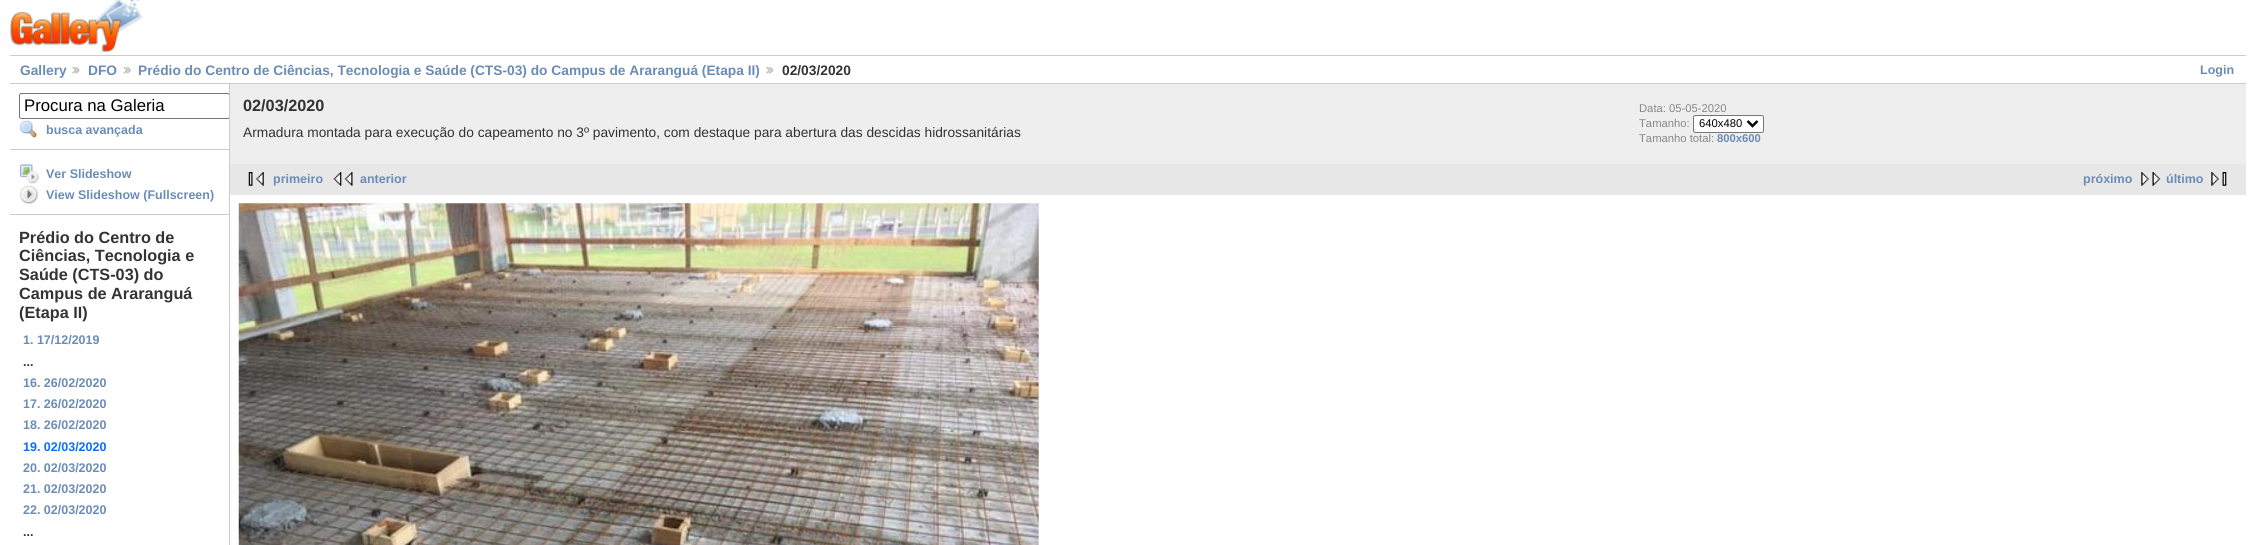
#include <cairo.h>
#include <math.h>
#include <stddef.h>


static void round_rect(cairo_t *cr, double x, double y, double w, double h, double r) {
    cairo_new_sub_path(cr);
    cairo_arc(cr, x + w - r, y + h - r, r, 0, M_PI / 2);
    cairo_arc(cr, x + r, y + h - r, r, M_PI / 2, M_PI);
    cairo_arc(cr, x + r, y + r, r, M_PI, 1.5 * M_PI);
    cairo_arc(cr, x + w - r, y + r, r, 1.5 * M_PI, 2 * M_PI);
    cairo_close_path(cr);
}

static void picture(cairo_t *cr, const char *path, double x, double y, double w, double h) {
    cairo_surface_t *image = cairo_image_surface_create_from_png(path);
    cairo_save(cr);
    cairo_set_source_surface(cr, image, x, y);
    cairo_rectangle(cr, x, y, w, h);
    cairo_fill(cr);
    cairo_restore(cr);
    cairo_surface_destroy(image);
}

int main(void) {
    cairo_surface_t *surface = cairo_image_surface_create(CAIRO_FORMAT_RGB24, 2256, 545);
    cairo_t *cr = cairo_create(surface);
    cairo_font_options_t *options = cairo_font_options_create();
    cairo_font_options_set_hint_metrics(options, CAIRO_HINT_METRICS_OFF);
    cairo_font_options_set_hint_style(options, CAIRO_HINT_STYLE_NONE);
    cairo_set_font_options(cr, options);
    cairo_set_miter_limit(cr, 4);
    cairo_set_source_rgb(cr, 1, 1, 1);
    cairo_paint(cr);
    picture(cr, "img1.png", 10, 0, 133, 52);
    cairo_set_source_rgb(cr, 0.8, 0.8, 0.8);
    cairo_rectangle(cr, 10, 55, 2236, 1);
    cairo_fill(cr);
    cairo_rectangle(cr, 10, 83, 2236, 1);
    cairo_fill(cr);
    cairo_select_font_face(cr, "Liberation Sans", CAIRO_FONT_SLANT_NORMAL, CAIRO_FONT_WEIGHT_BOLD);
    cairo_set_font_size(cr, 13.75);
    cairo_set_source_rgb(cr, 0.42, 0.549, 0.718);
    cairo_move_to(cr, 20, 75);
    cairo_show_text(cr, "Gallery");
    picture(cr, "img2.png", 72, 67, 8, 7);
    cairo_move_to(cr, 88, 75);
    cairo_show_text(cr, "DFO");
    picture(cr, "img3.png", 123, 67, 9, 7);
    cairo_move_to(cr, 138, 75);
    cairo_show_text(cr, "Prédio do Centro de Ciências, Tecnologia e Saúde (CTS-03) do Campus de Araranguá (Etapa II)");
    picture(cr, "img4.png", 766, 67, 8, 7);
    cairo_set_source_rgb(cr, 0.2, 0.2, 0.2);
    cairo_move_to(cr, 782, 75);
    cairo_show_text(cr, "02/03/2020");
    cairo_set_font_size(cr, 12.5);
    cairo_set_source_rgb(cr, 0.42, 0.549, 0.718);
    cairo_move_to(cr, 2200, 74);
    cairo_show_text(cr, "Login");
    cairo_set_source_rgb(cr, 0.8, 0.8, 0.8);
    cairo_rectangle(cr, 229, 84, 1, 461);
    cairo_fill(cr);
    cairo_rectangle(cr, 10, 149, 219, 1);
    cairo_fill(cr);
    cairo_save(cr);
    cairo_rectangle(cr, 10, 84, 219, 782);
    cairo_clip(cr);
    round_rect(cr, 19.5, 93.5, 210, 25, 2);
    cairo_set_source_rgb(cr, 0.463, 0.463, 0.463);
    cairo_set_line_width(cr, 1);
    cairo_stroke(cr);
    cairo_restore(cr);
    cairo_select_font_face(cr, "Liberation Sans", CAIRO_FONT_SLANT_NORMAL, CAIRO_FONT_WEIGHT_NORMAL);
    cairo_set_font_size(cr, 16.75);
    cairo_set_source_rgb(cr, 0, 0, 0);
    cairo_move_to(cr, 24, 111);
    cairo_show_text(cr, "Procura na Galeria");
    picture(cr, "img5.png", 19, 120, 18, 19);
    cairo_select_font_face(cr, "Liberation Sans", CAIRO_FONT_SLANT_NORMAL, CAIRO_FONT_WEIGHT_BOLD);
    cairo_set_font_size(cr, 12.5);
    cairo_set_source_rgb(cr, 0.42, 0.549, 0.718);
    cairo_move_to(cr, 46, 134);
    cairo_show_text(cr, "busca avançada");
    cairo_set_source_rgb(cr, 0.8, 0.8, 0.8);
    cairo_rectangle(cr, 10, 214, 219, 1);
    cairo_fill(cr);
    picture(cr, "img6.png", 19, 164, 20, 20);
    cairo_set_source_rgb(cr, 0.42, 0.549, 0.718);
    cairo_move_to(cr, 46, 178);
    cairo_show_text(cr, "Ver Slideshow");
    picture(cr, "img7.png", 20, 185, 18, 19);
    cairo_move_to(cr, 46, 199);
    cairo_show_text(cr, "View Slideshow (Fullscreen)");
    cairo_set_font_size(cr, 16.25);
    cairo_set_source_rgb(cr, 0.2, 0.2, 0.2);
    cairo_move_to(cr, 19, 243);
    cairo_show_text(cr, "Prédio do Centro de");
    cairo_move_to(cr, 19, 261);
    cairo_show_text(cr, "Ciências, Tecnologia e");
    cairo_move_to(cr, 19, 280);
    cairo_show_text(cr, "Saúde (CTS-03) do");
    cairo_move_to(cr, 19, 299);
    cairo_show_text(cr, "Campus de Araranguá");
    cairo_move_to(cr, 19, 318);
    cairo_show_text(cr, "(Etapa II)");
    cairo_set_font_size(cr, 12.5);
    cairo_set_source_rgb(cr, 0.42, 0.549, 0.718);
    cairo_move_to(cr, 23, 344);
    cairo_show_text(cr, "1. 17/12/2019");
    cairo_set_source_rgb(cr, 0.2, 0.2, 0.2);
    cairo_move_to(cr, 23, 366);
    cairo_show_text(cr, "...");
    cairo_set_source_rgb(cr, 0.42, 0.549, 0.718);
    cairo_move_to(cr, 23, 387);
    cairo_show_text(cr, "16. 26/02/2020");
    cairo_move_to(cr, 23, 408);
    cairo_show_text(cr, "17. 26/02/2020");
    cairo_move_to(cr, 23, 429);
    cairo_show_text(cr, "18. 26/02/2020");
    cairo_set_source_rgb(cr, 0.043, 0.424, 1);
    cairo_move_to(cr, 23, 451);
    cairo_show_text(cr, "19. 02/03/2020");
    cairo_set_source_rgb(cr, 0.42, 0.549, 0.718);
    cairo_move_to(cr, 23, 472);
    cairo_show_text(cr, "20. 02/03/2020");
    cairo_move_to(cr, 23, 493);
    cairo_show_text(cr, "21. 02/03/2020");
    cairo_move_to(cr, 23, 514);
    cairo_show_text(cr, "22. 02/03/2020");
    cairo_set_source_rgb(cr, 0.2, 0.2, 0.2);
    cairo_move_to(cr, 23, 536);
    cairo_show_text(cr, "...");
    cairo_set_source_rgb(cr, 0.933, 0.933, 0.933);
    cairo_rectangle(cr, 230, 84, 2016, 80);
    cairo_fill(cr);
    cairo_set_font_size(cr, 16.25);
    cairo_set_source_rgb(cr, 0.2, 0.2, 0.2);
    cairo_move_to(cr, 243, 111);
    cairo_show_text(cr, "02/03/2020");
    cairo_select_font_face(cr, "Liberation Sans", CAIRO_FONT_SLANT_NORMAL, CAIRO_FONT_WEIGHT_NORMAL);
    cairo_set_font_size(cr, 13.75);
    cairo_move_to(cr, 243, 137);
    cairo_show_text(cr, "Armadura montada para execução do capeamento no 3º pavimento, com destaque para abertura das descidas hidrossanitárias");
    cairo_set_font_size(cr, 11.25);
    cairo_set_source_rgb(cr, 0.533, 0.533, 0.533);
    cairo_move_to(cr, 1639, 112);
    cairo_show_text(cr, "Data: 05-05-2020");
    cairo_move_to(cr, 1639, 127);
    cairo_show_text(cr, "Tamanho:");
    cairo_set_source_rgb(cr, 1, 1, 1);
    round_rect(cr, 1693.5, 115.5, 70, 17, 2);
    cairo_fill_preserve(cr);
    cairo_set_source_rgb(cr, 0.463, 0.463, 0.463);
    cairo_set_line_width(cr, 1);
    cairo_stroke(cr);
    cairo_new_path(cr);
    cairo_move_to(cr, 1747.5, 121);
    cairo_line_to(cr, 1752.5, 126);
    cairo_line_to(cr, 1757.5, 121);
    cairo_set_source_rgb(cr, 0, 0, 0);
    cairo_set_line_width(cr, 2.5);
    cairo_stroke(cr);
    cairo_move_to(cr, 1699, 127);
    cairo_show_text(cr, "640x480");
    cairo_set_source_rgb(cr, 0.533, 0.533, 0.533);
    cairo_move_to(cr, 1639, 142);
    cairo_show_text(cr, "Tamanho total:");
    cairo_select_font_face(cr, "Liberation Sans", CAIRO_FONT_SLANT_NORMAL, CAIRO_FONT_WEIGHT_BOLD);
    cairo_set_source_rgb(cr, 0.42, 0.549, 0.718);
    cairo_move_to(cr, 1717, 142);
    cairo_show_text(cr, "800x600");
    cairo_set_source_rgb(cr, 0.906, 0.906, 0.906);
    cairo_rectangle(cr, 230, 164, 2016, 31);
    cairo_fill(cr);
    picture(cr, "img8.png", 248, 172, 16, 14);
    cairo_set_font_size(cr, 12.5);
    cairo_set_source_rgb(cr, 0.42, 0.549, 0.718);
    cairo_move_to(cr, 273, 183);
    cairo_show_text(cr, "primeiro");
    picture(cr, "img9.png", 333, 172, 20, 14);
    cairo_move_to(cr, 360, 183);
    cairo_show_text(cr, "anterior");
    cairo_move_to(cr, 2083, 183);
    cairo_show_text(cr, "próximo");
    picture(cr, "img10.png", 2141, 172, 20, 14);
    cairo_move_to(cr, 2166, 183);
    cairo_show_text(cr, "último");
    picture(cr, "img11.png", 2211, 172, 16, 14);
    picture(cr, "img12.png", 238, 203, 801, 342);
    cairo_surface_write_to_png(surface, "page.png");
    cairo_font_options_destroy(options);
    cairo_destroy(cr);
    cairo_surface_destroy(surface);
    return 0;
}
